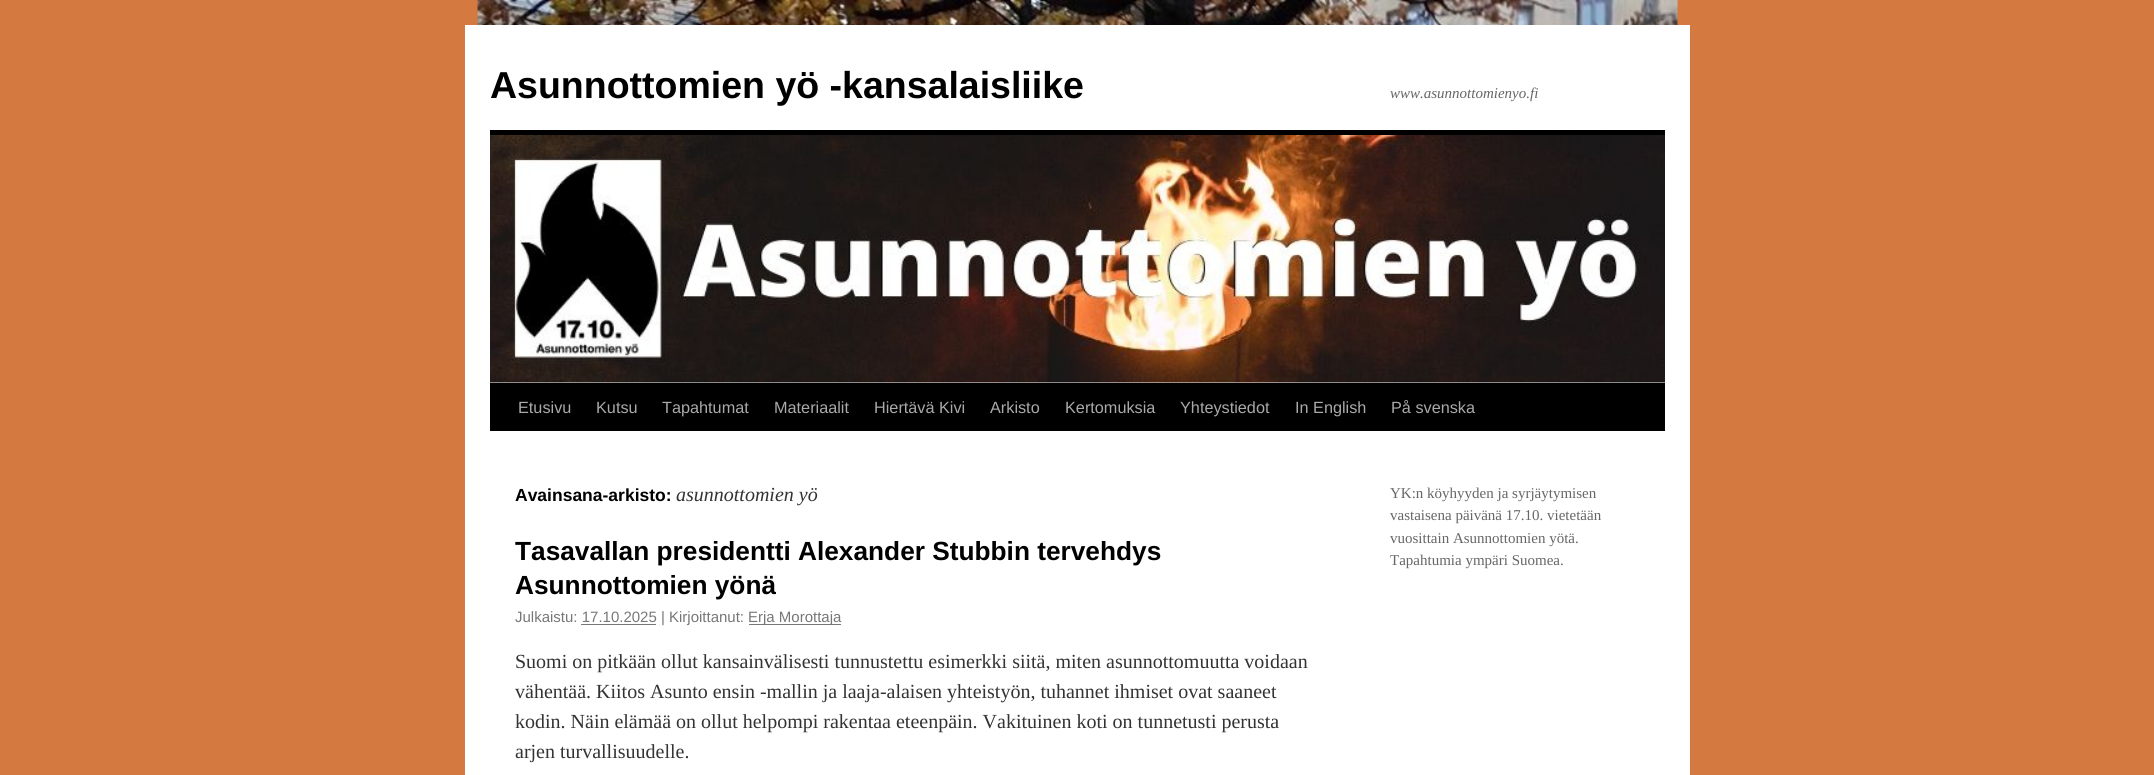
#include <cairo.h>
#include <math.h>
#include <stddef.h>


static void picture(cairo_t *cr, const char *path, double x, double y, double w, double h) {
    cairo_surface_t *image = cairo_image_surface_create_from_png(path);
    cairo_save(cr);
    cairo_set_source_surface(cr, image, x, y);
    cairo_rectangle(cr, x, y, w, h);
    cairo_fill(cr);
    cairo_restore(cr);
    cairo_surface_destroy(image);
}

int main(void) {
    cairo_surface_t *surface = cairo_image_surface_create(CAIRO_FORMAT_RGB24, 2154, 775);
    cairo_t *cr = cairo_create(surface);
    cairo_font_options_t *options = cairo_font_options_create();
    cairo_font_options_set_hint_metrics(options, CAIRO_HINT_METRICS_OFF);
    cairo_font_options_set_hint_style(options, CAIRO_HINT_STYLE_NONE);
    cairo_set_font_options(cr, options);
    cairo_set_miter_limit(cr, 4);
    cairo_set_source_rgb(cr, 0.831, 0.475, 0.251);
    cairo_paint(cr);
    picture(cr, "img1.png", 477, 0, 1201, 25);
    cairo_set_source_rgb(cr, 1, 1, 1);
    cairo_rectangle(cr, 465, 25, 1225, 750);
    cairo_fill(cr);
    cairo_select_font_face(cr, "Liberation Sans", CAIRO_FONT_SLANT_NORMAL, CAIRO_FONT_WEIGHT_BOLD);
    cairo_set_font_size(cr, 37.5);
    cairo_set_source_rgb(cr, 0, 0, 0);
    cairo_move_to(cr, 490, 98);
    cairo_show_text(cr, "Asunnottomien yö -kansalaisliike");
    cairo_select_font_face(cr, "Liberation Serif", CAIRO_FONT_SLANT_ITALIC, CAIRO_FONT_WEIGHT_NORMAL);
    cairo_set_font_size(cr, 15);
    cairo_set_source_rgb(cr, 0.4, 0.4, 0.4);
    cairo_move_to(cr, 1390, 98);
    cairo_show_text(cr, "www.asunnottomienyo.fi");
    cairo_set_source_rgb(cr, 0, 0, 0);
    cairo_rectangle(cr, 490, 130, 1175, 5);
    cairo_fill(cr);
    cairo_rectangle(cr, 490, 383, 1175, 48);
    cairo_fill(cr);
    picture(cr, "img2.png", 490, 135, 1175, 248);
    cairo_select_font_face(cr, "Liberation Sans", CAIRO_FONT_SLANT_NORMAL, CAIRO_FONT_WEIGHT_NORMAL);
    cairo_set_font_size(cr, 16.25);
    cairo_set_source_rgb(cr, 0.667, 0.667, 0.667);
    cairo_move_to(cr, 518, 413);
    cairo_show_text(cr, "Etusivu");
    cairo_move_to(cr, 596, 413);
    cairo_show_text(cr, "Kutsu");
    cairo_move_to(cr, 662, 413);
    cairo_show_text(cr, "Tapahtumat");
    cairo_move_to(cr, 774, 413);
    cairo_show_text(cr, "Materiaalit");
    cairo_move_to(cr, 874, 413);
    cairo_show_text(cr, "Hiertävä Kivi");
    cairo_move_to(cr, 990, 413);
    cairo_show_text(cr, "Arkisto");
    cairo_move_to(cr, 1065, 413);
    cairo_show_text(cr, "Kertomuksia");
    cairo_move_to(cr, 1180, 413);
    cairo_show_text(cr, "Yhteystiedot");
    cairo_move_to(cr, 1295, 413);
    cairo_show_text(cr, "In English");
    cairo_move_to(cr, 1391, 413);
    cairo_show_text(cr, "På svenska");
    cairo_select_font_face(cr, "Liberation Sans", CAIRO_FONT_SLANT_NORMAL, CAIRO_FONT_WEIGHT_BOLD);
    cairo_set_font_size(cr, 17.5);
    cairo_set_source_rgb(cr, 0, 0, 0);
    cairo_move_to(cr, 515, 501);
    cairo_show_text(cr, "Avainsana-arkisto:");
    cairo_select_font_face(cr, "Liberation Serif", CAIRO_FONT_SLANT_ITALIC, CAIRO_FONT_WEIGHT_NORMAL);
    cairo_set_font_size(cr, 20);
    cairo_set_source_rgb(cr, 0.2, 0.2, 0.2);
    cairo_move_to(cr, 676, 501);
    cairo_show_text(cr, "asunnottomien yö");
    cairo_select_font_face(cr, "Liberation Sans", CAIRO_FONT_SLANT_NORMAL, CAIRO_FONT_WEIGHT_BOLD);
    cairo_set_font_size(cr, 26.25);
    cairo_set_source_rgb(cr, 0, 0, 0);
    cairo_move_to(cr, 515, 560);
    cairo_show_text(cr, "Tasavallan presidentti Alexander Stubbin tervehdys");
    cairo_move_to(cr, 515, 594);
    cairo_show_text(cr, "Asunnottomien yönä");
    cairo_select_font_face(cr, "Liberation Sans", CAIRO_FONT_SLANT_NORMAL, CAIRO_FONT_WEIGHT_NORMAL);
    cairo_set_font_size(cr, 15);
    cairo_set_source_rgb(cr, 0.467, 0.467, 0.467);
    cairo_move_to(cr, 515, 622);
    cairo_show_text(cr, "Julkaistu: 17.10.2025 | Kirjoittanut:");
    cairo_rectangle(cr, 749, 624, 92, 1);
    cairo_fill(cr);
    cairo_move_to(cr, 748, 622);
    cairo_show_text(cr, "Erja Morottaja");
    cairo_rectangle(cr, 581, 624, 75, 1);
    cairo_fill(cr);
    cairo_select_font_face(cr, "Liberation Serif", CAIRO_FONT_SLANT_NORMAL, CAIRO_FONT_WEIGHT_NORMAL);
    cairo_set_font_size(cr, 20);
    cairo_set_source_rgb(cr, 0.2, 0.2, 0.2);
    cairo_move_to(cr, 515, 668);
    cairo_show_text(cr, "Suomi on pitkään ollut kansainvälisesti tunnustettu esimerkki siitä, miten asunnottomuutta voidaan");
    cairo_move_to(cr, 515, 698);
    cairo_show_text(cr, "vähentää. Kiitos Asunto ensin -mallin ja laaja-alaisen yhteistyön, tuhannet ihmiset ovat saaneet");
    cairo_move_to(cr, 515, 728);
    cairo_show_text(cr, "kodin. Näin elämää on ollut helpompi rakentaa eteenpäin. Vakituinen koti on tunnetusti perusta");
    cairo_move_to(cr, 515, 758);
    cairo_show_text(cr, "arjen turvallisuudelle.");
    cairo_set_font_size(cr, 15);
    cairo_set_source_rgb(cr, 0.4, 0.4, 0.4);
    cairo_move_to(cr, 1390, 498);
    cairo_show_text(cr, "YK:n köyhyyden ja syrjäytymisen");
    cairo_move_to(cr, 1390, 520);
    cairo_show_text(cr, "vastaisena päivänä 17.10. vietetään");
    cairo_move_to(cr, 1390, 543);
    cairo_show_text(cr, "vuosittain Asunnottomien yötä.");
    cairo_move_to(cr, 1390, 565);
    cairo_show_text(cr, "Tapahtumia ympäri Suomea.");
    cairo_surface_write_to_png(surface, "page.png");
    cairo_font_options_destroy(options);
    cairo_destroy(cr);
    cairo_surface_destroy(surface);
    return 0;
}
